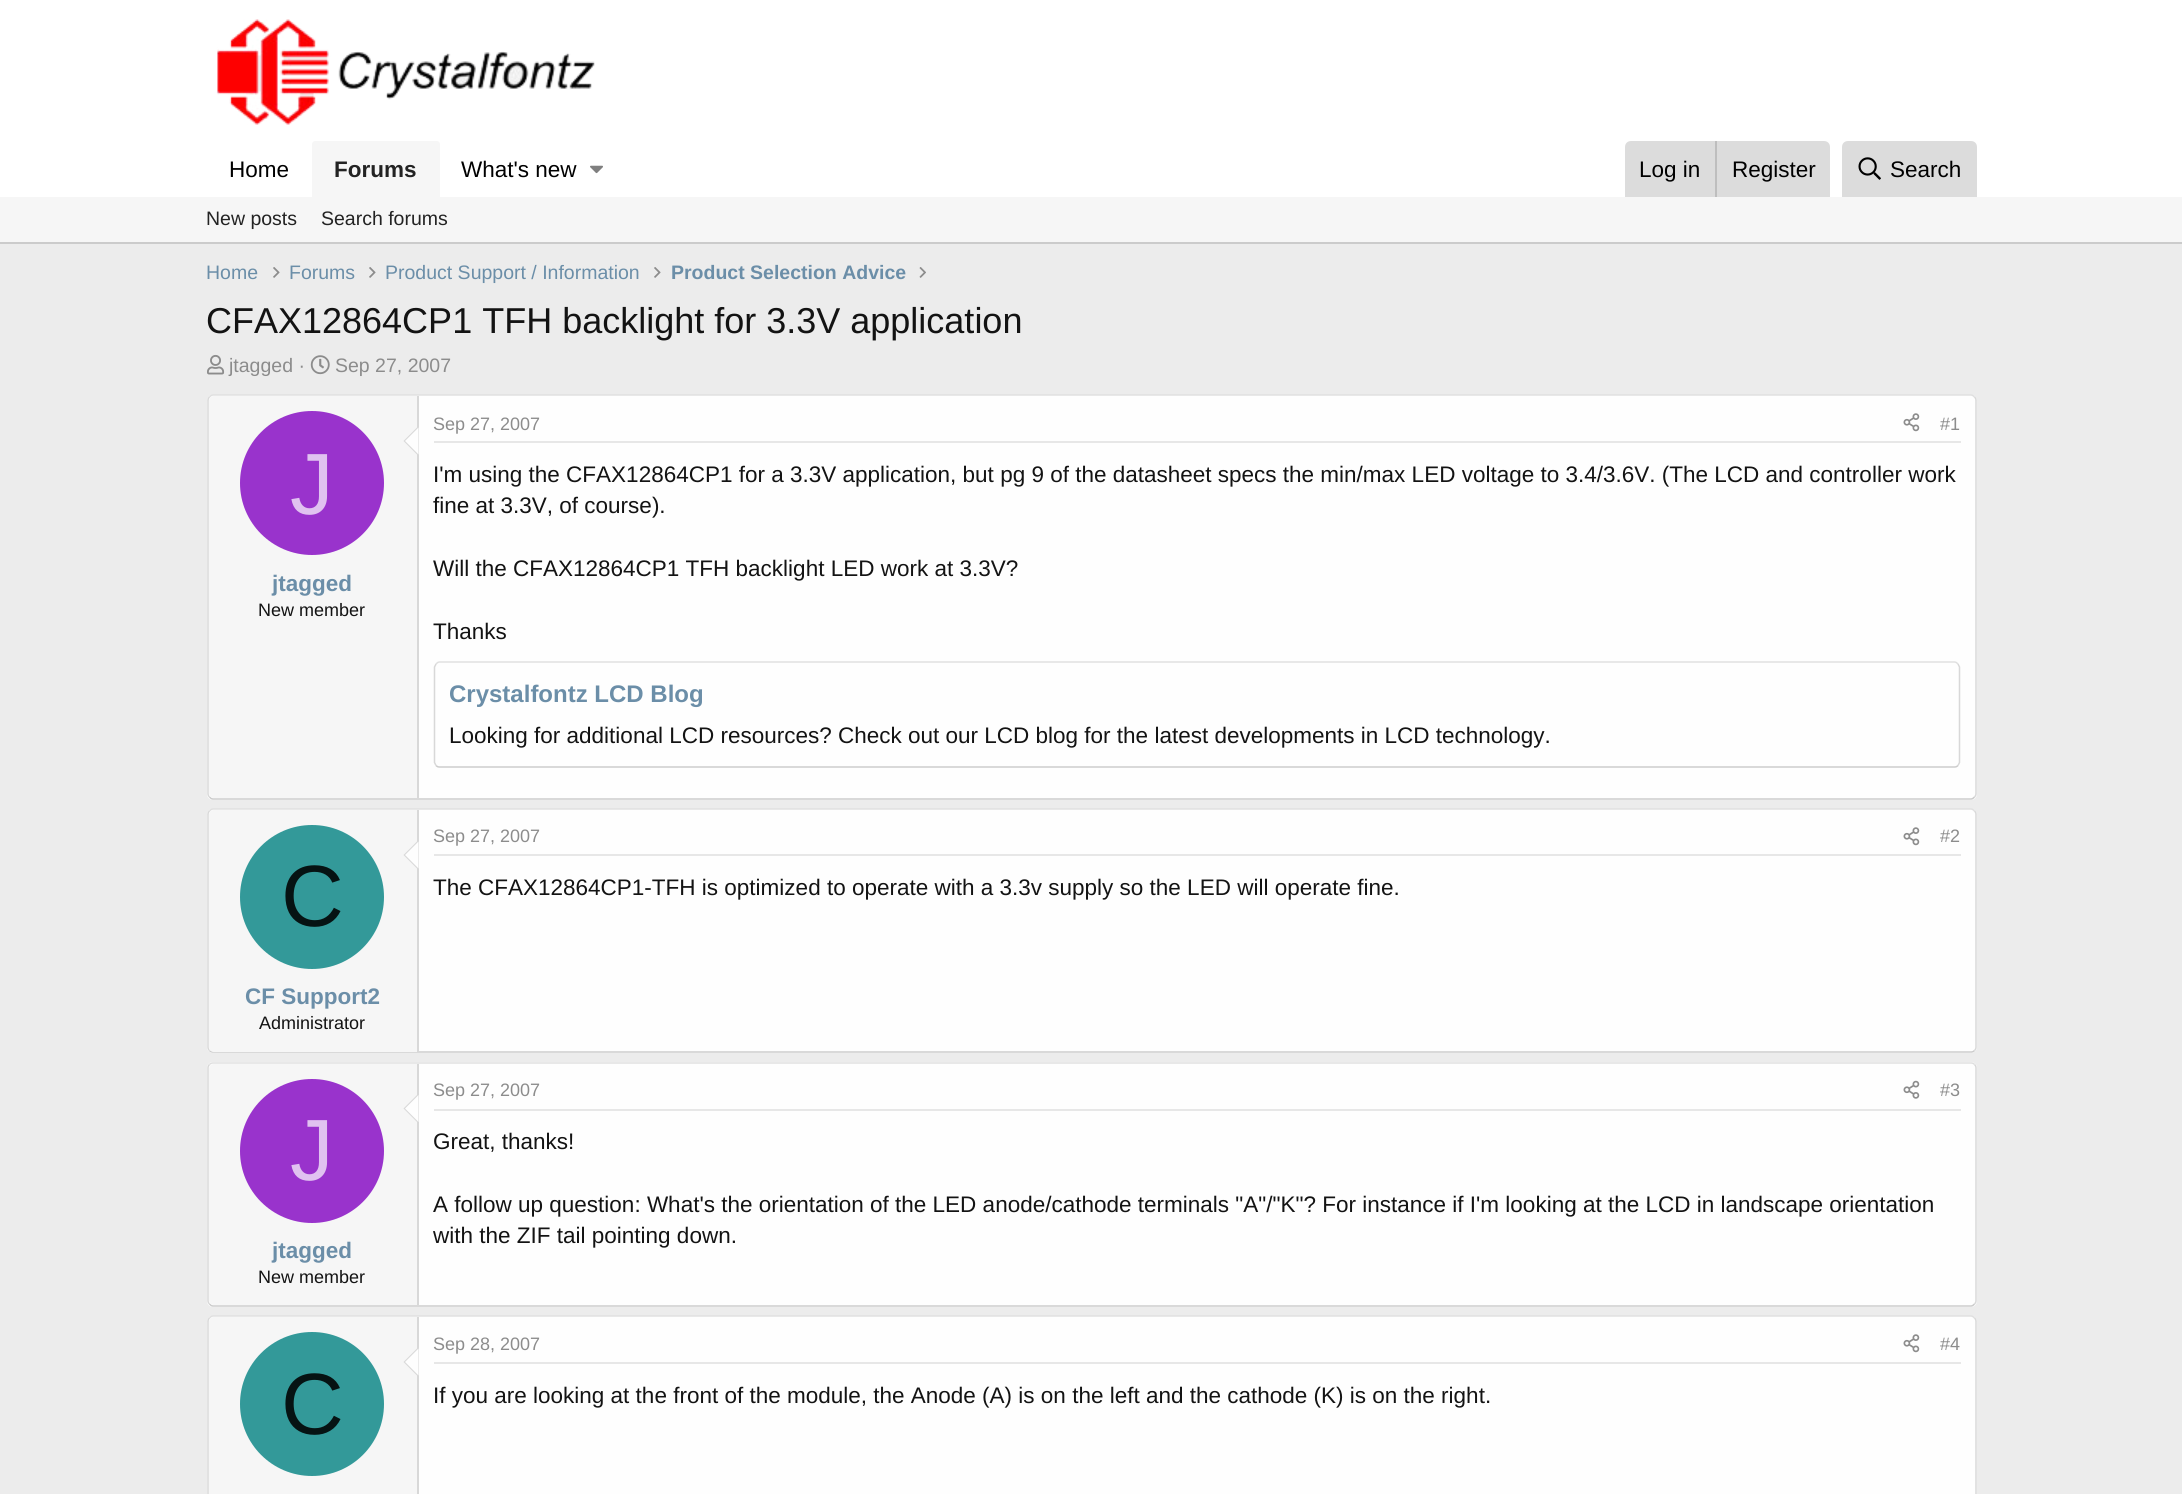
#include <cairo.h>
#include <math.h>
#include <stddef.h>


static void round_rect(cairo_t *cr, double x, double y, double w, double h, double r) {
    cairo_new_sub_path(cr);
    cairo_arc(cr, x + w - r, y + h - r, r, 0, M_PI / 2);
    cairo_arc(cr, x + r, y + h - r, r, M_PI / 2, M_PI);
    cairo_arc(cr, x + r, y + r, r, M_PI, 1.5 * M_PI);
    cairo_arc(cr, x + w - r, y + r, r, 1.5 * M_PI, 2 * M_PI);
    cairo_close_path(cr);
}

static void picture(cairo_t *cr, const char *path, double x, double y, double w, double h) {
    cairo_surface_t *image = cairo_image_surface_create_from_png(path);
    cairo_save(cr);
    cairo_set_source_surface(cr, image, x, y);
    cairo_rectangle(cr, x, y, w, h);
    cairo_fill(cr);
    cairo_restore(cr);
    cairo_surface_destroy(image);
}

int main(void) {
    cairo_surface_t *surface = cairo_image_surface_create(CAIRO_FORMAT_RGB24, 2182, 1494);
    cairo_t *cr = cairo_create(surface);
    cairo_font_options_t *options = cairo_font_options_create();
    cairo_font_options_set_hint_metrics(options, CAIRO_HINT_METRICS_OFF);
    cairo_font_options_set_hint_style(options, CAIRO_HINT_STYLE_NONE);
    cairo_set_font_options(cr, options);
    cairo_set_miter_limit(cr, 4);
    cairo_set_source_rgb(cr, 0.925, 0.925, 0.925);
    cairo_paint(cr);
    cairo_set_source_rgb(cr, 1, 1, 1);
    cairo_rectangle(cr, 0, 0, 2182, 197);
    cairo_fill(cr);
    picture(cr, "img1.png", 216, 19, 379, 106);
    cairo_select_font_face(cr, "Liberation Sans", CAIRO_FONT_SLANT_NORMAL, CAIRO_FONT_WEIGHT_NORMAL);
    cairo_set_font_size(cr, 22.5);
    cairo_set_source_rgb(cr, 0, 0, 0);
    cairo_move_to(cr, 229, 177);
    cairo_show_text(cr, "Home");
    cairo_set_source_rgb(cr, 0.961, 0.961, 0.961);
    cairo_new_path(cr);
    cairo_move_to(cr, 315, 141);
    cairo_line_to(cr, 437, 141);
    cairo_curve_to(cr, 438.5, 141, 440, 142.5, 440, 144);
    cairo_line_to(cr, 440, 197);
    cairo_line_to(cr, 312, 197);
    cairo_line_to(cr, 312, 144);
    cairo_curve_to(cr, 312, 142.5, 313.5, 141, 315, 141);
    cairo_close_path(cr);
    cairo_fill(cr);
    cairo_select_font_face(cr, "Liberation Sans", CAIRO_FONT_SLANT_NORMAL, CAIRO_FONT_WEIGHT_BOLD);
    cairo_set_source_rgb(cr, 0.137, 0.137, 0.137);
    cairo_move_to(cr, 334, 177);
    cairo_show_text(cr, "Forums");
    cairo_select_font_face(cr, "Liberation Sans", CAIRO_FONT_SLANT_NORMAL, CAIRO_FONT_WEIGHT_NORMAL);
    cairo_set_source_rgb(cr, 0, 0, 0);
    cairo_move_to(cr, 461, 177);
    cairo_show_text(cr, "What's new");
    picture(cr, "img2.png", 590, 165, 13, 9);
    cairo_set_source_rgb(cr, 0.863, 0.863, 0.863);
    cairo_new_path(cr);
    cairo_move_to(cr, 1631, 141);
    cairo_line_to(cr, 1824, 141);
    cairo_curve_to(cr, 1827.5, 141, 1830, 143.5, 1830, 147);
    cairo_line_to(cr, 1830, 197);
    cairo_line_to(cr, 1625, 197);
    cairo_line_to(cr, 1625, 147);
    cairo_curve_to(cr, 1625, 143.5, 1627.5, 141, 1631, 141);
    cairo_close_path(cr);
    cairo_fill(cr);
    cairo_set_source_rgb(cr, 0, 0, 0);
    cairo_move_to(cr, 1639, 177);
    cairo_show_text(cr, "Log in");
    cairo_set_source_rgb(cr, 0.745, 0.745, 0.745);
    cairo_rectangle(cr, 1715, 141, 2, 56);
    cairo_fill(cr);
    cairo_set_source_rgb(cr, 0, 0, 0);
    cairo_move_to(cr, 1732, 177);
    cairo_show_text(cr, "Register");
    cairo_set_source_rgb(cr, 0.863, 0.863, 0.863);
    cairo_new_path(cr);
    cairo_move_to(cr, 1848, 141);
    cairo_line_to(cr, 1971, 141);
    cairo_curve_to(cr, 1974.5, 141, 1977, 143.5, 1977, 147);
    cairo_line_to(cr, 1977, 197);
    cairo_line_to(cr, 1842, 197);
    cairo_line_to(cr, 1842, 147);
    cairo_curve_to(cr, 1842, 143.5, 1844.5, 141, 1848, 141);
    cairo_close_path(cr);
    cairo_fill(cr);
    picture(cr, "img3.png", 1858, 157, 23, 23);
    cairo_set_source_rgb(cr, 0, 0, 0);
    cairo_move_to(cr, 1890, 177);
    cairo_show_text(cr, "Search");
    cairo_set_source_rgb(cr, 0.961, 0.961, 0.961);
    cairo_rectangle(cr, 0, 197, 2182, 45);
    cairo_fill(cr);
    cairo_set_source_rgb(cr, 0.796, 0.796, 0.796);
    cairo_rectangle(cr, 0, 242, 2182, 2);
    cairo_fill(cr);
    cairo_set_font_size(cr, 19.5);
    cairo_set_source_rgb(cr, 0.137, 0.137, 0.137);
    cairo_move_to(cr, 206, 225);
    cairo_show_text(cr, "New posts");
    cairo_move_to(cr, 321, 225);
    cairo_show_text(cr, "Search forums");
    cairo_set_source_rgb(cr, 0.42, 0.557, 0.659);
    cairo_move_to(cr, 206, 279);
    cairo_show_text(cr, "Home");
    picture(cr, "img4.png", 273, 267, 7, 11);
    cairo_move_to(cr, 289, 279);
    cairo_show_text(cr, "Forums");
    picture(cr, "img4.png", 369, 267, 7, 11);
    cairo_move_to(cr, 385, 279);
    cairo_show_text(cr, "Product Support / Information");
    picture(cr, "img4.png", 654, 267, 7, 11);
    cairo_select_font_face(cr, "Liberation Sans", CAIRO_FONT_SLANT_NORMAL, CAIRO_FONT_WEIGHT_BOLD);
    cairo_move_to(cr, 671, 279);
    cairo_show_text(cr, "Product Selection Advice");
    picture(cr, "img5.png", 919, 267, 7, 11);
    cairo_select_font_face(cr, "Liberation Sans", CAIRO_FONT_SLANT_NORMAL, CAIRO_FONT_WEIGHT_NORMAL);
    cairo_set_font_size(cr, 36);
    cairo_set_source_rgb(cr, 0.078, 0.078, 0.078);
    cairo_move_to(cr, 206, 333);
    cairo_show_text(cr, "CFAX12864CP1 TFH backlight for 3.3V application");
    picture(cr, "img6.png", 207, 354, 18, 21);
    cairo_set_font_size(cr, 19.5);
    cairo_set_source_rgb(cr, 0.549, 0.549, 0.549);
    cairo_move_to(cr, 229, 372);
    cairo_show_text(cr, "jtagged ·");
    picture(cr, "img7.png", 310, 355, 20, 20);
    cairo_move_to(cr, 335, 372);
    cairo_show_text(cr, "Sep 27, 2007");
    cairo_set_source_rgb(cr, 0.996, 0.996, 0.996);
    round_rect(cr, 207, 395, 1770, 405, 6);
    cairo_fill(cr);
    cairo_new_path(cr);
    cairo_move_to(cr, 209.5, 397);
    cairo_curve_to(cr, 210.5, 396, 211.5, 395, 213, 395);
    cairo_line_to(cr, 1971, 395);
    cairo_curve_to(cr, 1972.5, 395, 1973.5, 396, 1974.5, 397);
    cairo_set_source_rgb(cr, 0.875, 0.875, 0.875);
    cairo_set_line_width(cr, 1.5);
    cairo_stroke(cr);
    cairo_new_path(cr);
    cairo_move_to(cr, 1974.5, 397);
    cairo_curve_to(cr, 1975.5, 398, 1976, 399, 1976, 400.5);
    cairo_line_to(cr, 1976, 793.5);
    cairo_curve_to(cr, 1976, 795, 1975.5, 796, 1974.5, 797);
    cairo_set_source_rgb(cr, 0.847, 0.847, 0.847);
    cairo_stroke(cr);
    cairo_new_path(cr);
    cairo_move_to(cr, 1974.5, 797);
    cairo_curve_to(cr, 1973.5, 798, 1972.5, 799, 1971, 799);
    cairo_line_to(cr, 213, 799);
    cairo_curve_to(cr, 211.5, 799, 210.5, 798, 209.5, 797);
    cairo_set_source_rgb(cr, 0.796, 0.796, 0.796);
    cairo_stroke(cr);
    cairo_new_path(cr);
    cairo_move_to(cr, 209.5, 797);
    cairo_curve_to(cr, 208.5, 796, 208, 795, 208, 793.5);
    cairo_line_to(cr, 208, 400.5);
    cairo_curve_to(cr, 208, 399, 208.5, 398, 209.5, 397);
    cairo_set_source_rgb(cr, 0.847, 0.847, 0.847);
    cairo_stroke(cr);
    cairo_set_source_rgb(cr, 0.961, 0.961, 0.961);
    cairo_new_path(cr);
    cairo_move_to(cr, 214, 396);
    cairo_line_to(cr, 419, 396);
    cairo_line_to(cr, 419, 798);
    cairo_line_to(cr, 214, 798);
    cairo_curve_to(cr, 211, 798, 209, 796, 209, 793);
    cairo_line_to(cr, 209, 401);
    cairo_curve_to(cr, 209, 398, 211, 396, 214, 396);
    cairo_close_path(cr);
    cairo_fill(cr);
    cairo_set_source_rgb(cr, 0.847, 0.847, 0.847);
    cairo_rectangle(cr, 417, 396, 2, 402);
    cairo_fill(cr);
    cairo_new_path(cr);
    cairo_move_to(cr, 418.5, 426);
    cairo_line_to(cr, 418.5, 456);
    cairo_line_to(cr, 403.5, 441);
    cairo_close_path(cr);
    cairo_fill(cr);
    cairo_set_source_rgb(cr, 0.996, 0.996, 0.996);
    cairo_new_path(cr);
    cairo_move_to(cr, 418.5, 427.5);
    cairo_line_to(cr, 418.5, 454.5);
    cairo_line_to(cr, 405, 441);
    cairo_close_path(cr);
    cairo_fill(cr);
    cairo_set_source_rgb(cr, 0.6, 0.2, 0.8);
    cairo_arc(cr, 312, 483, 72, 0, 2 * M_PI);
    cairo_fill(cr);
    cairo_set_font_size(cr, 87);
    cairo_set_source_rgb(cr, 0.878, 0.761, 0.941);
    cairo_move_to(cr, 290, 514);
    cairo_show_text(cr, "J");
    cairo_select_font_face(cr, "Liberation Sans", CAIRO_FONT_SLANT_NORMAL, CAIRO_FONT_WEIGHT_BOLD);
    cairo_set_font_size(cr, 22.5);
    cairo_set_source_rgb(cr, 0.42, 0.557, 0.659);
    cairo_move_to(cr, 272, 591);
    cairo_show_text(cr, "jtagged");
    cairo_select_font_face(cr, "Liberation Sans", CAIRO_FONT_SLANT_NORMAL, CAIRO_FONT_WEIGHT_NORMAL);
    cairo_set_font_size(cr, 18);
    cairo_set_source_rgb(cr, 0.078, 0.078, 0.078);
    cairo_move_to(cr, 258, 616);
    cairo_show_text(cr, "New member");
    cairo_set_source_rgb(cr, 0.906, 0.906, 0.906);
    cairo_rectangle(cr, 434, 441, 1527, 2);
    cairo_fill(cr);
    cairo_set_source_rgb(cr, 0.549, 0.549, 0.549);
    cairo_move_to(cr, 433, 430);
    cairo_show_text(cr, "Sep 27, 2007");
    picture(cr, "img8.png", 1903, 413, 17, 19);
    cairo_move_to(cr, 1940, 430);
    cairo_show_text(cr, "#1");
    cairo_set_font_size(cr, 22.5);
    cairo_set_source_rgb(cr, 0.078, 0.078, 0.078);
    cairo_move_to(cr, 433, 482);
    cairo_show_text(cr, "I'm using the CFAX12864CP1 for a 3.3V application, but pg 9 of the datasheet specs the min/max LED voltage to 3.4/3.6V. (The LCD and controller work");
    cairo_move_to(cr, 433, 513);
    cairo_show_text(cr, "fine at 3.3V, of course).");
    cairo_move_to(cr, 433, 576);
    cairo_show_text(cr, "Will the CFAX12864CP1 TFH backlight LED work at 3.3V?");
    cairo_move_to(cr, 433, 639);
    cairo_show_text(cr, "Thanks");
    cairo_new_path(cr);
    cairo_move_to(cr, 436, 664);
    cairo_curve_to(cr, 437, 663, 438, 662, 439.5, 662);
    cairo_line_to(cr, 1954.5, 662);
    cairo_curve_to(cr, 1956, 662, 1957, 663, 1958, 664);
    cairo_set_source_rgb(cr, 0.875, 0.875, 0.875);
    cairo_stroke(cr);
    cairo_new_path(cr);
    cairo_move_to(cr, 1958, 664);
    cairo_line_to(cr, 1959.5, 667);
    cairo_line_to(cr, 1959.5, 762.5);
    cairo_line_to(cr, 1958, 765.5);
    cairo_set_source_rgb(cr, 0.847, 0.847, 0.847);
    cairo_stroke(cr);
    cairo_new_path(cr);
    cairo_move_to(cr, 1958, 765.5);
    cairo_curve_to(cr, 1957, 766.5, 1956, 767, 1954.5, 767);
    cairo_line_to(cr, 439.5, 767);
    cairo_curve_to(cr, 438, 767, 437, 766.5, 436, 765.5);
    cairo_set_source_rgb(cr, 0.796, 0.796, 0.796);
    cairo_stroke(cr);
    cairo_new_path(cr);
    cairo_move_to(cr, 436, 765.5);
    cairo_line_to(cr, 434.5, 762.5);
    cairo_line_to(cr, 434.5, 667);
    cairo_line_to(cr, 436, 664);
    cairo_set_source_rgb(cr, 0.847, 0.847, 0.847);
    cairo_stroke(cr);
    cairo_select_font_face(cr, "Liberation Sans", CAIRO_FONT_SLANT_NORMAL, CAIRO_FONT_WEIGHT_BOLD);
    cairo_set_font_size(cr, 24);
    cairo_set_source_rgb(cr, 0.42, 0.557, 0.659);
    cairo_move_to(cr, 449, 702);
    cairo_show_text(cr, "Crystalfontz LCD Blog");
    cairo_select_font_face(cr, "Liberation Sans", CAIRO_FONT_SLANT_NORMAL, CAIRO_FONT_WEIGHT_NORMAL);
    cairo_set_font_size(cr, 22.5);
    cairo_set_source_rgb(cr, 0.078, 0.078, 0.078);
    cairo_move_to(cr, 449, 743);
    cairo_show_text(cr, "Looking for additional LCD resources? Check out our LCD blog for the latest developments in LCD technology.");
    cairo_set_source_rgb(cr, 0.996, 0.996, 0.996);
    round_rect(cr, 207, 809, 1770, 244, 6);
    cairo_fill(cr);
    cairo_new_path(cr);
    cairo_move_to(cr, 209.5, 811);
    cairo_curve_to(cr, 210.5, 810, 211.5, 809, 213, 809);
    cairo_line_to(cr, 1971, 809);
    cairo_curve_to(cr, 1972.5, 809, 1973.5, 810, 1974.5, 811);
    cairo_set_source_rgb(cr, 0.875, 0.875, 0.875);
    cairo_stroke(cr);
    cairo_new_path(cr);
    cairo_move_to(cr, 1974.5, 811);
    cairo_curve_to(cr, 1975.5, 812, 1976, 813, 1976, 814.5);
    cairo_line_to(cr, 1976, 1047);
    cairo_curve_to(cr, 1976, 1048.5, 1975.5, 1049.5, 1974.5, 1050.5);
    cairo_set_source_rgb(cr, 0.847, 0.847, 0.847);
    cairo_stroke(cr);
    cairo_new_path(cr);
    cairo_move_to(cr, 1974.5, 1050.5);
    cairo_curve_to(cr, 1973.5, 1051.5, 1972.5, 1052, 1971, 1052);
    cairo_line_to(cr, 213, 1052);
    cairo_curve_to(cr, 211.5, 1052, 210.5, 1051.5, 209.5, 1050.5);
    cairo_set_source_rgb(cr, 0.796, 0.796, 0.796);
    cairo_stroke(cr);
    cairo_new_path(cr);
    cairo_move_to(cr, 209.5, 1050.5);
    cairo_curve_to(cr, 208.5, 1049.5, 208, 1048.5, 208, 1047);
    cairo_line_to(cr, 208, 814.5);
    cairo_curve_to(cr, 208, 813, 208.5, 812, 209.5, 811);
    cairo_set_source_rgb(cr, 0.847, 0.847, 0.847);
    cairo_stroke(cr);
    cairo_set_source_rgb(cr, 0.961, 0.961, 0.961);
    cairo_new_path(cr);
    cairo_move_to(cr, 214, 810);
    cairo_line_to(cr, 419, 810);
    cairo_line_to(cr, 419, 1052);
    cairo_line_to(cr, 214, 1052);
    cairo_curve_to(cr, 211, 1052, 209, 1050, 209, 1047);
    cairo_line_to(cr, 209, 815);
    cairo_curve_to(cr, 209, 812, 211, 810, 214, 810);
    cairo_close_path(cr);
    cairo_fill(cr);
    cairo_set_source_rgb(cr, 0.847, 0.847, 0.847);
    cairo_rectangle(cr, 417, 810, 2, 242);
    cairo_fill(cr);
    cairo_new_path(cr);
    cairo_move_to(cr, 418.5, 840);
    cairo_line_to(cr, 418.5, 870);
    cairo_line_to(cr, 403.5, 855);
    cairo_close_path(cr);
    cairo_fill(cr);
    cairo_set_source_rgb(cr, 0.996, 0.996, 0.996);
    cairo_new_path(cr);
    cairo_move_to(cr, 418.5, 841.5);
    cairo_line_to(cr, 418.5, 868.5);
    cairo_line_to(cr, 405, 855);
    cairo_close_path(cr);
    cairo_fill(cr);
    cairo_set_source_rgb(cr, 0.2, 0.6, 0.6);
    cairo_arc(cr, 312, 897, 72, 0, 2 * M_PI);
    cairo_fill(cr);
    cairo_set_font_size(cr, 87);
    cairo_set_source_rgb(cr, 0.024, 0.075, 0.075);
    cairo_move_to(cr, 281, 926);
    cairo_show_text(cr, "C");
    cairo_select_font_face(cr, "Liberation Sans", CAIRO_FONT_SLANT_NORMAL, CAIRO_FONT_WEIGHT_BOLD);
    cairo_set_font_size(cr, 22.5);
    cairo_set_source_rgb(cr, 0.42, 0.557, 0.659);
    cairo_move_to(cr, 245, 1004);
    cairo_show_text(cr, "CF Support2");
    cairo_select_font_face(cr, "Liberation Sans", CAIRO_FONT_SLANT_NORMAL, CAIRO_FONT_WEIGHT_NORMAL);
    cairo_set_font_size(cr, 18);
    cairo_set_source_rgb(cr, 0.078, 0.078, 0.078);
    cairo_move_to(cr, 259, 1029);
    cairo_show_text(cr, "Administrator");
    cairo_set_source_rgb(cr, 0.906, 0.906, 0.906);
    cairo_rectangle(cr, 434, 854, 1527, 2);
    cairo_fill(cr);
    cairo_set_source_rgb(cr, 0.549, 0.549, 0.549);
    cairo_move_to(cr, 433, 842);
    cairo_show_text(cr, "Sep 27, 2007");
    picture(cr, "img8.png", 1903, 827, 17, 19);
    cairo_move_to(cr, 1940, 842);
    cairo_show_text(cr, "#2");
    cairo_set_font_size(cr, 22.5);
    cairo_set_source_rgb(cr, 0.078, 0.078, 0.078);
    cairo_move_to(cr, 433, 895);
    cairo_show_text(cr, "The CFAX12864CP1-TFH is optimized to operate with a 3.3v supply so the LED will operate fine.");
    cairo_set_source_rgb(cr, 0.996, 0.996, 0.996);
    round_rect(cr, 207, 1062, 1770, 245, 6);
    cairo_fill(cr);
    cairo_new_path(cr);
    cairo_move_to(cr, 209.5, 1064.5);
    cairo_curve_to(cr, 210.5, 1063.5, 211.5, 1063, 213, 1063);
    cairo_line_to(cr, 1971, 1063);
    cairo_curve_to(cr, 1972.5, 1063, 1973.5, 1063.5, 1974.5, 1064.5);
    cairo_set_source_rgb(cr, 0.875, 0.875, 0.875);
    cairo_stroke(cr);
    cairo_new_path(cr);
    cairo_move_to(cr, 1974.5, 1064.5);
    cairo_curve_to(cr, 1975.5, 1065.5, 1976, 1066.5, 1976, 1068);
    cairo_line_to(cr, 1976, 1300.5);
    cairo_curve_to(cr, 1976, 1302, 1975.5, 1303, 1974.5, 1304);
    cairo_set_source_rgb(cr, 0.847, 0.847, 0.847);
    cairo_stroke(cr);
    cairo_new_path(cr);
    cairo_move_to(cr, 1974.5, 1304);
    cairo_curve_to(cr, 1973.5, 1305, 1972.5, 1306, 1971, 1306);
    cairo_line_to(cr, 213, 1306);
    cairo_curve_to(cr, 211.5, 1306, 210.5, 1305, 209.5, 1304);
    cairo_set_source_rgb(cr, 0.796, 0.796, 0.796);
    cairo_stroke(cr);
    cairo_new_path(cr);
    cairo_move_to(cr, 209.5, 1304);
    cairo_curve_to(cr, 208.5, 1303, 208, 1302, 208, 1300.5);
    cairo_line_to(cr, 208, 1068);
    cairo_curve_to(cr, 208, 1066.5, 208.5, 1065.5, 209.5, 1064.5);
    cairo_set_source_rgb(cr, 0.847, 0.847, 0.847);
    cairo_stroke(cr);
    cairo_set_source_rgb(cr, 0.961, 0.961, 0.961);
    cairo_new_path(cr);
    cairo_move_to(cr, 214, 1064);
    cairo_line_to(cr, 419, 1064);
    cairo_line_to(cr, 419, 1305);
    cairo_line_to(cr, 214, 1305);
    cairo_curve_to(cr, 211, 1305, 209, 1303, 209, 1300);
    cairo_line_to(cr, 209, 1069);
    cairo_curve_to(cr, 209, 1066, 211, 1064, 214, 1064);
    cairo_close_path(cr);
    cairo_fill(cr);
    cairo_set_source_rgb(cr, 0.847, 0.847, 0.847);
    cairo_rectangle(cr, 417, 1064, 2, 241);
    cairo_fill(cr);
    cairo_new_path(cr);
    cairo_move_to(cr, 418.5, 1093.5);
    cairo_line_to(cr, 418.5, 1123.5);
    cairo_line_to(cr, 403.5, 1108.5);
    cairo_close_path(cr);
    cairo_fill(cr);
    cairo_set_source_rgb(cr, 0.996, 0.996, 0.996);
    cairo_new_path(cr);
    cairo_move_to(cr, 418.5, 1095);
    cairo_line_to(cr, 418.5, 1122);
    cairo_line_to(cr, 405, 1108.5);
    cairo_close_path(cr);
    cairo_fill(cr);
    cairo_set_source_rgb(cr, 0.6, 0.2, 0.8);
    cairo_arc(cr, 312, 1151, 72, 0, 2 * M_PI);
    cairo_fill(cr);
    cairo_set_font_size(cr, 87);
    cairo_set_source_rgb(cr, 0.878, 0.761, 0.941);
    cairo_move_to(cr, 290, 1180);
    cairo_show_text(cr, "J");
    cairo_select_font_face(cr, "Liberation Sans", CAIRO_FONT_SLANT_NORMAL, CAIRO_FONT_WEIGHT_BOLD);
    cairo_set_font_size(cr, 22.5);
    cairo_set_source_rgb(cr, 0.42, 0.557, 0.659);
    cairo_move_to(cr, 272, 1258);
    cairo_show_text(cr, "jtagged");
    cairo_select_font_face(cr, "Liberation Sans", CAIRO_FONT_SLANT_NORMAL, CAIRO_FONT_WEIGHT_NORMAL);
    cairo_set_font_size(cr, 18);
    cairo_set_source_rgb(cr, 0.078, 0.078, 0.078);
    cairo_move_to(cr, 258, 1283);
    cairo_show_text(cr, "New member");
    cairo_set_source_rgb(cr, 0.906, 0.906, 0.906);
    cairo_rectangle(cr, 434, 1109, 1527, 2);
    cairo_fill(cr);
    cairo_set_source_rgb(cr, 0.549, 0.549, 0.549);
    cairo_move_to(cr, 433, 1096);
    cairo_show_text(cr, "Sep 27, 2007");
    picture(cr, "img9.png", 1903, 1080, 17, 19);
    cairo_move_to(cr, 1940, 1096);
    cairo_show_text(cr, "#3");
    cairo_set_font_size(cr, 22.5);
    cairo_set_source_rgb(cr, 0.078, 0.078, 0.078);
    cairo_move_to(cr, 433, 1149);
    cairo_show_text(cr, "Great, thanks!");
    cairo_move_to(cr, 433, 1212);
    cairo_show_text(cr, "A follow up question: What's the orientation of the LED anode/cathode terminals \"A\"/\"K\"? For instance if I'm looking at the LCD in landscape orientation");
    cairo_move_to(cr, 433, 1243);
    cairo_show_text(cr, "with the ZIF tail pointing down.");
    cairo_set_source_rgb(cr, 0.996, 0.996, 0.996);
    round_rect(cr, 207, 1316, 1770, 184, 6);
    cairo_fill(cr);
    cairo_new_path(cr);
    cairo_move_to(cr, 209.5, 1318);
    cairo_curve_to(cr, 210.5, 1317, 211.5, 1316, 213, 1316);
    cairo_line_to(cr, 1971, 1316);
    cairo_curve_to(cr, 1972.5, 1316, 1973.5, 1317, 1974.5, 1318);
    cairo_set_source_rgb(cr, 0.875, 0.875, 0.875);
    cairo_stroke(cr);
    cairo_new_path(cr);
    cairo_move_to(cr, 1974.5, 1318);
    cairo_curve_to(cr, 1975.5, 1319, 1976, 1320, 1976, 1321.5);
    cairo_line_to(cr, 1976, 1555.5);
    cairo_curve_to(cr, 1976, 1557, 1975.5, 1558, 1974.5, 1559);
    cairo_set_source_rgb(cr, 0.847, 0.847, 0.847);
    cairo_stroke(cr);
    cairo_new_path(cr);
    cairo_move_to(cr, 209.5, 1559);
    cairo_curve_to(cr, 208.5, 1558, 208, 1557, 208, 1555.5);
    cairo_line_to(cr, 208, 1321.5);
    cairo_curve_to(cr, 208, 1320, 208.5, 1319, 209.5, 1318);
    cairo_stroke(cr);
    cairo_set_source_rgb(cr, 0.961, 0.961, 0.961);
    cairo_new_path(cr);
    cairo_move_to(cr, 214, 1317);
    cairo_line_to(cr, 419, 1317);
    cairo_line_to(cr, 419, 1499);
    cairo_line_to(cr, 214, 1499);
    cairo_curve_to(cr, 211, 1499, 209, 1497, 209, 1494);
    cairo_line_to(cr, 209, 1322);
    cairo_curve_to(cr, 209, 1319, 211, 1317, 214, 1317);
    cairo_close_path(cr);
    cairo_fill(cr);
    cairo_set_source_rgb(cr, 0.847, 0.847, 0.847);
    cairo_rectangle(cr, 417, 1317, 2, 177);
    cairo_fill(cr);
    cairo_new_path(cr);
    cairo_move_to(cr, 418.5, 1347);
    cairo_line_to(cr, 418.5, 1377);
    cairo_line_to(cr, 403.5, 1362);
    cairo_close_path(cr);
    cairo_fill(cr);
    cairo_set_source_rgb(cr, 0.996, 0.996, 0.996);
    cairo_new_path(cr);
    cairo_move_to(cr, 418.5, 1348.5);
    cairo_line_to(cr, 418.5, 1375.5);
    cairo_line_to(cr, 405, 1362);
    cairo_close_path(cr);
    cairo_fill(cr);
    cairo_set_source_rgb(cr, 0.2, 0.6, 0.6);
    cairo_arc(cr, 312, 1404, 72, 0, 2 * M_PI);
    cairo_fill(cr);
    cairo_set_font_size(cr, 87);
    cairo_set_source_rgb(cr, 0.024, 0.075, 0.075);
    cairo_move_to(cr, 281, 1434);
    cairo_show_text(cr, "C");
    cairo_set_source_rgb(cr, 0.906, 0.906, 0.906);
    cairo_rectangle(cr, 434, 1362, 1527, 2);
    cairo_fill(cr);
    cairo_set_font_size(cr, 18);
    cairo_set_source_rgb(cr, 0.549, 0.549, 0.549);
    cairo_move_to(cr, 433, 1350);
    cairo_show_text(cr, "Sep 28, 2007");
    picture(cr, "img8.png", 1903, 1334, 17, 19);
    cairo_move_to(cr, 1940, 1350);
    cairo_show_text(cr, "#4");
    cairo_set_font_size(cr, 22.5);
    cairo_set_source_rgb(cr, 0.078, 0.078, 0.078);
    cairo_move_to(cr, 433, 1403);
    cairo_show_text(cr, "If you are looking at the front of the module, the Anode (A) is on the left and the cathode (K) is on the right.");
    cairo_surface_write_to_png(surface, "page.png");
    cairo_font_options_destroy(options);
    cairo_destroy(cr);
    cairo_surface_destroy(surface);
    return 0;
}
